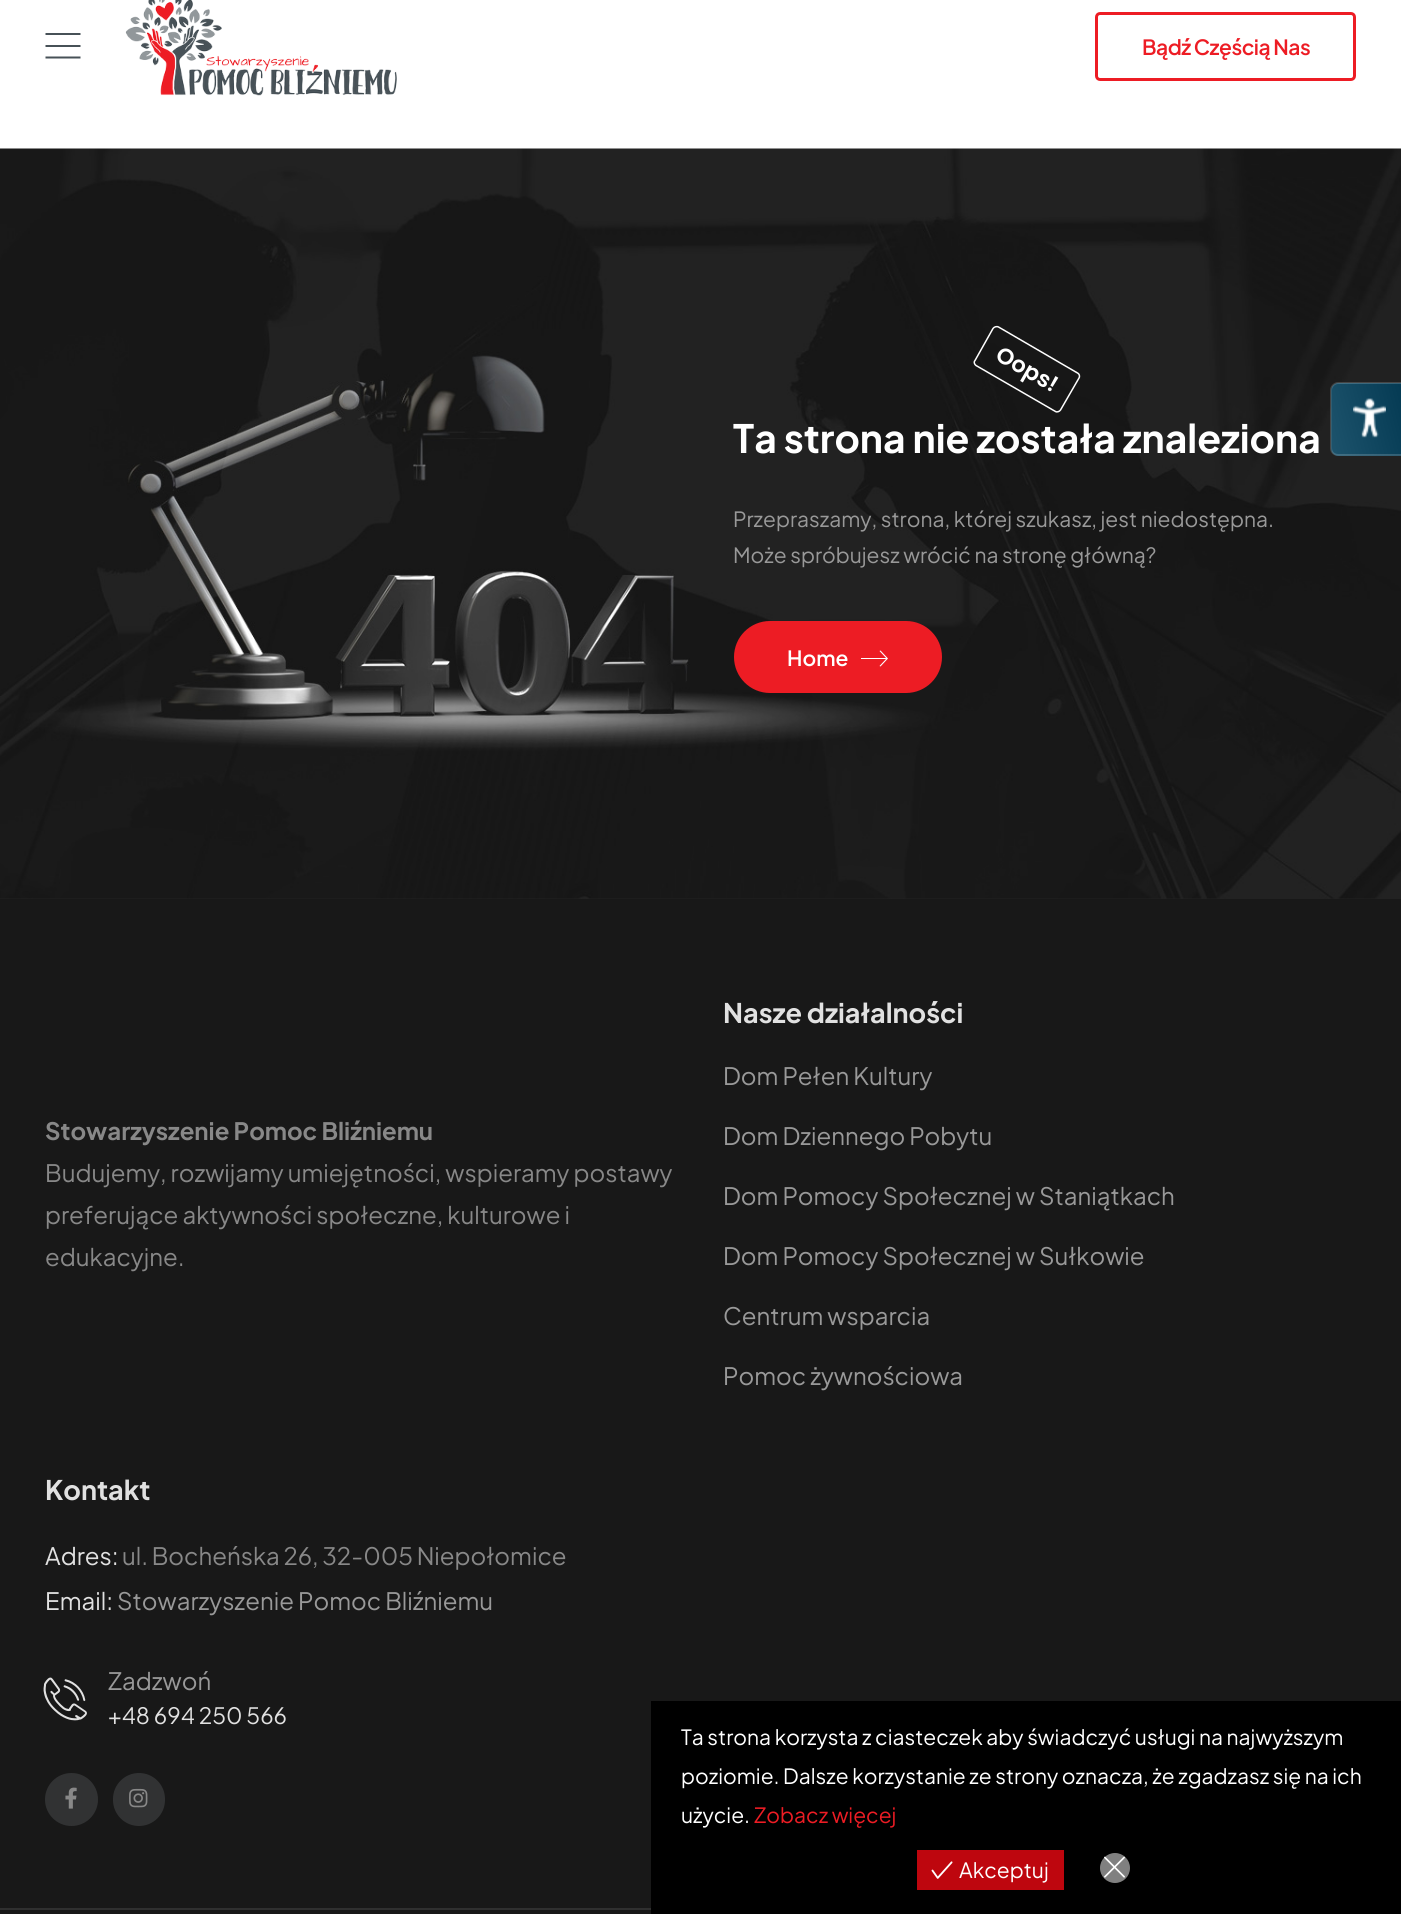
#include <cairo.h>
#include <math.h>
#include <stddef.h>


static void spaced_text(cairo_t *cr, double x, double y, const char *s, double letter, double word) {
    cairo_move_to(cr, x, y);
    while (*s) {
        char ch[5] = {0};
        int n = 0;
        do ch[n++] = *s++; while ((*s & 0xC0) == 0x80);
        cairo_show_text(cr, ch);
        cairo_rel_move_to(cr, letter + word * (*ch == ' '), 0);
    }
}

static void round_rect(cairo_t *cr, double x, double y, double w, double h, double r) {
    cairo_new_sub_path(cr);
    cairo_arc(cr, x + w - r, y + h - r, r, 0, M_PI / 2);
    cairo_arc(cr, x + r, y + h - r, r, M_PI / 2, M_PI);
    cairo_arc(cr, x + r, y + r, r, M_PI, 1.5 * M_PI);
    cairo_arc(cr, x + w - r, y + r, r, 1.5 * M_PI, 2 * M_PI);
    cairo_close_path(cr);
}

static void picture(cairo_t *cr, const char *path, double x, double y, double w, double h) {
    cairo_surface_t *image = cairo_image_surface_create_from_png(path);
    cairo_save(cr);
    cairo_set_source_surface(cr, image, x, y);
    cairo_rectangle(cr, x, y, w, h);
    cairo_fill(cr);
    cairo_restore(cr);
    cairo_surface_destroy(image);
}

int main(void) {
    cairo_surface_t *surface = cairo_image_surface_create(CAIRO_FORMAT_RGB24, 1401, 1914);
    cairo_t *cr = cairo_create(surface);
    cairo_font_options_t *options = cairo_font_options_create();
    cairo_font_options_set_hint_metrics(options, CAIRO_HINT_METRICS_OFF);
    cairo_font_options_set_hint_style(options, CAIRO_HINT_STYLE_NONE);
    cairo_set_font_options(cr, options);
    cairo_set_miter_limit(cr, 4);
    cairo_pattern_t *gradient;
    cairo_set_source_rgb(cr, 1, 1, 1);
    cairo_paint(cr);
    cairo_set_source_rgb(cr, 0.278, 0.318, 0.341);
    cairo_new_path(cr);
    cairo_move_to(cr, 45.5, 35);
    cairo_line_to(cr, 45.5, 33);
    cairo_line_to(cr, 80.5, 33);
    cairo_line_to(cr, 80.5, 35);
    cairo_close_path(cr);
    cairo_move_to(cr, 45.5, 58.5);
    cairo_line_to(cr, 45.5, 56.5);
    cairo_line_to(cr, 80.5, 56.5);
    cairo_line_to(cr, 80.5, 58.5);
    cairo_close_path(cr);
    cairo_move_to(cr, 45.5, 47);
    cairo_line_to(cr, 45.5, 45);
    cairo_line_to(cr, 80.5, 45);
    cairo_line_to(cr, 80.5, 47);
    cairo_close_path(cr);
    cairo_fill(cr);
    picture(cr, "img1.png", 125, 0, 272, 96);
    round_rect(cr, 1096.5, 13.5, 258, 66, 3.5);
    cairo_set_source_rgb(cr, 0.929, 0.11, 0.141);
    cairo_set_line_width(cr, 3);
    cairo_stroke(cr);
    cairo_select_font_face(cr, "Plus Jakarta Sans SemiBold", CAIRO_FONT_SLANT_NORMAL, CAIRO_FONT_WEIGHT_NORMAL);
    cairo_set_font_size(cr, 21);
    spaced_text(cr, 1142, 55, "Bądź Częścią Nas", -0.5, 0);
    cairo_set_source_rgb(cr, 0.133, 0.133, 0.133);
    cairo_rectangle(cr, 0, 898, 1401, 1);
    cairo_fill(cr);
    picture(cr, "img2.png", 0, 148, 1401, 751);
    cairo_new_path(cr);
    cairo_move_to(cr, 998.5, 327);
    cairo_line_to(cr, 1077.5, 373);
    cairo_curve_to(cr, 1079.5, 374, 1080, 376.5, 1079, 378);
    cairo_line_to(cr, 1060.5, 410);
    cairo_curve_to(cr, 1059.5, 411.5, 1057, 412.5, 1055.5, 411.5);
    cairo_line_to(cr, 976, 365.5);
    cairo_curve_to(cr, 974.5, 364.5, 973.5, 362, 975, 360.5);
    cairo_line_to(cr, 993, 328.5);
    cairo_curve_to(cr, 994, 327, 996.5, 326, 998.5, 327);
    cairo_close_path(cr);
    cairo_set_source_rgb(cr, 1, 1, 1);
    cairo_set_line_width(cr, 1.5);
    cairo_stroke(cr);
    cairo_select_font_face(cr, "Poppins SemiBold", CAIRO_FONT_SLANT_NORMAL, CAIRO_FONT_WEIGHT_NORMAL);
    cairo_set_font_size(cr, 22.5);
    cairo_save(cr);
    cairo_translate(cr, 994, 359);
    cairo_rotate(cr, 30 * M_PI / 180);
    cairo_move_to(cr, 0, 0);
    cairo_show_text(cr, "Oops!");
    cairo_restore(cr);
    cairo_select_font_face(cr, "Plus Jakarta Sans", CAIRO_FONT_SLANT_NORMAL, CAIRO_FONT_WEIGHT_BOLD);
    cairo_set_font_size(cr, 39);
    cairo_move_to(cr, 733, 453);
    cairo_show_text(cr, "Ta strona nie została znaleziona");
    cairo_select_font_face(cr, "Plus Jakarta Sans", CAIRO_FONT_SLANT_NORMAL, CAIRO_FONT_WEIGHT_NORMAL);
    cairo_set_font_size(cr, 21);
    cairo_set_source_rgb(cr, 0.6, 0.6, 0.6);
    cairo_move_to(cr, 733, 527);
    cairo_show_text(cr, "Przepraszamy, strona, której szukasz, jest niedostępna.");
    cairo_move_to(cr, 733, 563);
    cairo_show_text(cr, "Może spróbujesz wrócić na stronę główną?");
    cairo_set_source_rgb(cr, 0.929, 0.11, 0.141);
    round_rect(cr, 735.5, 622.5, 205, 69, 34.5);
    cairo_fill_preserve(cr);
    cairo_set_line_width(cr, 3);
    cairo_stroke(cr);
    cairo_select_font_face(cr, "Plus Jakarta Sans SemiBold", CAIRO_FONT_SLANT_NORMAL, CAIRO_FONT_WEIGHT_NORMAL);
    cairo_set_source_rgb(cr, 1, 1, 1);
    cairo_move_to(cr, 787, 666);
    cairo_show_text(cr, "Home");
    cairo_new_path(cr);
    cairo_move_to(cr, 880.5, 666.5);
    cairo_line_to(cr, 879.5, 666);
    cairo_line_to(cr, 886, 659);
    cairo_line_to(cr, 861, 659);
    cairo_line_to(cr, 861, 658);
    cairo_line_to(cr, 886, 658);
    cairo_line_to(cr, 879.5, 651);
    cairo_line_to(cr, 880.5, 650.5);
    cairo_line_to(cr, 888, 658.5);
    cairo_close_path(cr);
    cairo_fill(cr);
    cairo_set_source_rgb(cr, 0.094, 0.094, 0.094);
    cairo_rectangle(cr, 0, 899, 1401, 1015);
    cairo_fill(cr);
    cairo_select_font_face(cr, "Plus Jakarta Sans", CAIRO_FONT_SLANT_NORMAL, CAIRO_FONT_WEIGHT_BOLD);
    cairo_set_font_size(cr, 24);
    cairo_set_source_rgb(cr, 0.533, 0.533, 0.533);
    cairo_move_to(cr, 45, 1140);
    cairo_show_text(cr, "Stowarzyszenie Pomoc Bliźniemu");
    cairo_select_font_face(cr, "Plus Jakarta Sans", CAIRO_FONT_SLANT_NORMAL, CAIRO_FONT_WEIGHT_NORMAL);
    cairo_move_to(cr, 45, 1182);
    cairo_show_text(cr, "Budujemy, rozwijamy umiejętności, wspieramy postawy");
    cairo_move_to(cr, 45, 1224);
    cairo_show_text(cr, "preferujące aktywności społeczne, kulturowe i");
    cairo_move_to(cr, 45, 1266);
    cairo_show_text(cr, "edukacyjne.");
    cairo_select_font_face(cr, "Plus Jakarta Sans", CAIRO_FONT_SLANT_NORMAL, CAIRO_FONT_WEIGHT_BOLD);
    cairo_set_font_size(cr, 27);
    cairo_set_source_rgb(cr, 0.882, 0.882, 0.882);
    cairo_move_to(cr, 723, 1023);
    cairo_show_text(cr, "Nasze działalności");
    cairo_select_font_face(cr, "Plus Jakarta Sans", CAIRO_FONT_SLANT_NORMAL, CAIRO_FONT_WEIGHT_NORMAL);
    cairo_set_font_size(cr, 24);
    cairo_set_source_rgb(cr, 0.6, 0.6, 0.6);
    cairo_move_to(cr, 723, 1085);
    cairo_show_text(cr, "Dom Pełen Kultury");
    cairo_move_to(cr, 723, 1145);
    cairo_show_text(cr, "Dom Dziennego Pobytu");
    cairo_move_to(cr, 723, 1205);
    cairo_show_text(cr, "Dom Pomocy Społecznej w Staniątkach");
    cairo_move_to(cr, 723, 1265);
    cairo_show_text(cr, "Dom Pomocy Społecznej w Sułkowie");
    cairo_move_to(cr, 723, 1325);
    cairo_show_text(cr, "Centrum wsparcia");
    cairo_move_to(cr, 723, 1385);
    cairo_show_text(cr, "Pomoc żywnościowa");
    cairo_select_font_face(cr, "Plus Jakarta Sans", CAIRO_FONT_SLANT_NORMAL, CAIRO_FONT_WEIGHT_BOLD);
    cairo_set_font_size(cr, 27);
    cairo_set_source_rgb(cr, 0.882, 0.882, 0.882);
    cairo_move_to(cr, 45, 1500);
    cairo_show_text(cr, "Kontakt");
    cairo_select_font_face(cr, "Plus Jakarta Sans", CAIRO_FONT_SLANT_NORMAL, CAIRO_FONT_WEIGHT_NORMAL);
    cairo_set_font_size(cr, 24);
    cairo_move_to(cr, 45, 1565);
    cairo_show_text(cr, "Adres:");
    cairo_set_source_rgb(cr, 0.533, 0.533, 0.533);
    spaced_text(cr, 122, 1565, "ul. Bocheńska 26, 32-005 Niepołomice", 0, -0.5);
    cairo_set_source_rgb(cr, 0.882, 0.882, 0.882);
    cairo_move_to(cr, 45, 1610);
    cairo_show_text(cr, "Email:");
    cairo_set_source_rgb(cr, 0.6, 0.6, 0.6);
    cairo_move_to(cr, 117, 1610);
    cairo_show_text(cr, "Stowarzyszenie Pomoc Bliźniemu");
    picture(cr, "img3.png", 43, 1677, 44, 44);
    cairo_move_to(cr, 108, 1690);
    cairo_show_text(cr, "Zadzwoń");
    cairo_set_font_size(cr, 22.5);
    cairo_set_source_rgb(cr, 0.882, 0.882, 0.882);
    cairo_move_to(cr, 108, 1724);
    cairo_show_text(cr, "+48 694 250 566");
    cairo_set_source_rgb(cr, 0.192, 0.196, 0.2);
    cairo_new_path(cr);
    cairo_arc(cr, 71.5, 1799.5, 26.5, 0, 2 * M_PI);
    cairo_fill(cr);
    picture(cr, "img4.png", 65, 1787, 12, 22);
    round_rect(cr, 113, 1773, 52, 53, 26);
    cairo_fill(cr);
    picture(cr, "img5.png", 129, 1788, 19, 20);
    cairo_set_source_rgb(cr, 0.184, 0.184, 0.184);
    cairo_rectangle(cr, 0, 1908, 651, 2);
    cairo_fill(cr);
    cairo_set_source_rgb(cr, 0.035, 0.353, 0.506);
    cairo_new_path(cr);
    cairo_move_to(cr, 1339, 383);
    cairo_line_to(cr, 1401, 383);
    cairo_line_to(cr, 1401, 456);
    cairo_line_to(cr, 1339, 456);
    cairo_curve_to(cr, 1334.5, 456, 1331, 452.5, 1331, 448);
    cairo_line_to(cr, 1331, 391);
    cairo_curve_to(cr, 1331, 386.5, 1334.5, 383, 1339, 383);
    cairo_close_path(cr);
    cairo_fill(cr);
    cairo_save(cr);
    cairo_new_path(cr);
    cairo_move_to(cr, 1339, 383);
    cairo_line_to(cr, 1401, 383);
    cairo_line_to(cr, 1401, 456);
    cairo_line_to(cr, 1339, 456);
    cairo_curve_to(cr, 1334.5, 456, 1331, 452.5, 1331, 448);
    cairo_line_to(cr, 1331, 391);
    cairo_curve_to(cr, 1331, 386.5, 1334.5, 383, 1339, 383);
    cairo_close_path(cr);
    cairo_clip(cr);
    gradient = cairo_pattern_create_linear(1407, 338, 1326, 360);
    cairo_pattern_add_color_stop_rgba(gradient, 0.01, 0, 0, 0, 0.35);
    cairo_pattern_add_color_stop_rgba(gradient, 0.98, 0.263, 0.263, 0.263, 0.35);
    cairo_set_source(cr, gradient);
    cairo_pattern_destroy(gradient);
    cairo_rectangle(cr, 1332, 383, 69, 1);
    cairo_fill(cr);
    gradient = cairo_pattern_create_linear(1338, 408, 1257, 430);
    cairo_pattern_add_color_stop_rgba(gradient, 0.01, 0, 0, 0, 0.35);
    cairo_pattern_add_color_stop_rgba(gradient, 0.98, 0.263, 0.263, 0.263, 0.35);
    cairo_set_source(cr, gradient);
    cairo_pattern_destroy(gradient);
    cairo_rectangle(cr, 1331, 384, 1, 71);
    cairo_fill(cr);
    gradient = cairo_pattern_create_linear(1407, 408, 1326, 430);
    cairo_pattern_add_color_stop_rgba(gradient, 0.01, 0, 0, 0, 0.35);
    cairo_pattern_add_color_stop_rgba(gradient, 0.98, 0.263, 0.263, 0.263, 0.35);
    cairo_set_source(cr, gradient);
    cairo_pattern_destroy(gradient);
    cairo_rectangle(cr, 1332, 384, 69, 71);
    cairo_fill(cr);
    gradient = cairo_pattern_create_linear(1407, 479, 1326, 501);
    cairo_pattern_add_color_stop_rgba(gradient, 0.01, 0, 0, 0, 0.35);
    cairo_pattern_add_color_stop_rgba(gradient, 0.98, 0.263, 0.263, 0.263, 0.35);
    cairo_set_source(cr, gradient);
    cairo_pattern_destroy(gradient);
    cairo_rectangle(cr, 1332, 455, 69, 1);
    cairo_fill(cr);
    cairo_restore(cr);
    cairo_set_source_rgba(cr, 1, 1, 1, 0.17);
    cairo_set_fill_rule(cr, CAIRO_FILL_RULE_EVEN_ODD);
    cairo_new_path(cr);
    cairo_move_to(cr, 1338, 382);
    cairo_line_to(cr, 1401, 382);
    cairo_line_to(cr, 1401, 456);
    cairo_line_to(cr, 1338, 456);
    cairo_curve_to(cr, 1334, 456, 1330, 453, 1330, 448);
    cairo_line_to(cr, 1330, 390);
    cairo_curve_to(cr, 1330, 386, 1334, 382, 1338, 382);
    cairo_close_path(cr);
    cairo_move_to(cr, 1338, 384);
    cairo_line_to(cr, 1401, 384);
    cairo_line_to(cr, 1401, 454);
    cairo_line_to(cr, 1338, 454);
    cairo_curve_to(cr, 1335, 454, 1332, 452, 1332, 448);
    cairo_line_to(cr, 1332, 390);
    cairo_curve_to(cr, 1332, 387, 1335, 384, 1338, 384);
    cairo_close_path(cr);
    cairo_fill(cr);
    picture(cr, "img6.png", 1353, 398, 33, 40);
    cairo_set_source_rgb(cr, 0, 0, 0);
    cairo_rectangle(cr, 651, 1701, 750, 213);
    cairo_fill(cr);
    cairo_set_font_size(cr, 21);
    cairo_set_source_rgb(cr, 1, 1, 1);
    cairo_move_to(cr, 681, 1745);
    cairo_show_text(cr, "Ta strona korzysta z ciasteczek aby świadczyć usługi na najwyższym");
    cairo_move_to(cr, 681, 1784);
    cairo_show_text(cr, "poziomie. Dalsze korzystanie ze strony oznacza, że zgadzasz się na ich");
    cairo_move_to(cr, 681, 1823);
    cairo_show_text(cr, "użycie.");
    cairo_set_source_rgb(cr, 0.929, 0.11, 0.141);
    cairo_move_to(cr, 754, 1823);
    cairo_show_text(cr, "Zobacz więcej");
    cairo_set_source_rgb(cr, 0.745, 0.027, 0.055);
    cairo_rectangle(cr, 917, 1850, 147, 40);
    cairo_fill(cr);
    picture(cr, "img7.png", 931, 1861, 22, 18);
    cairo_set_source_rgb(cr, 1, 1, 1);
    cairo_move_to(cr, 959, 1878);
    cairo_show_text(cr, "Akceptuj");
    cairo_set_source_rgb(cr, 0.502, 0.502, 0.502);
    cairo_new_path(cr);
    cairo_arc(cr, 1115, 1868, 15, 0, 2 * M_PI);
    cairo_fill(cr);
    picture(cr, "img8.png", 1104, 1856, 21, 22);
    cairo_surface_write_to_png(surface, "page.png");
    cairo_font_options_destroy(options);
    cairo_destroy(cr);
    cairo_surface_destroy(surface);
    return 0;
}
